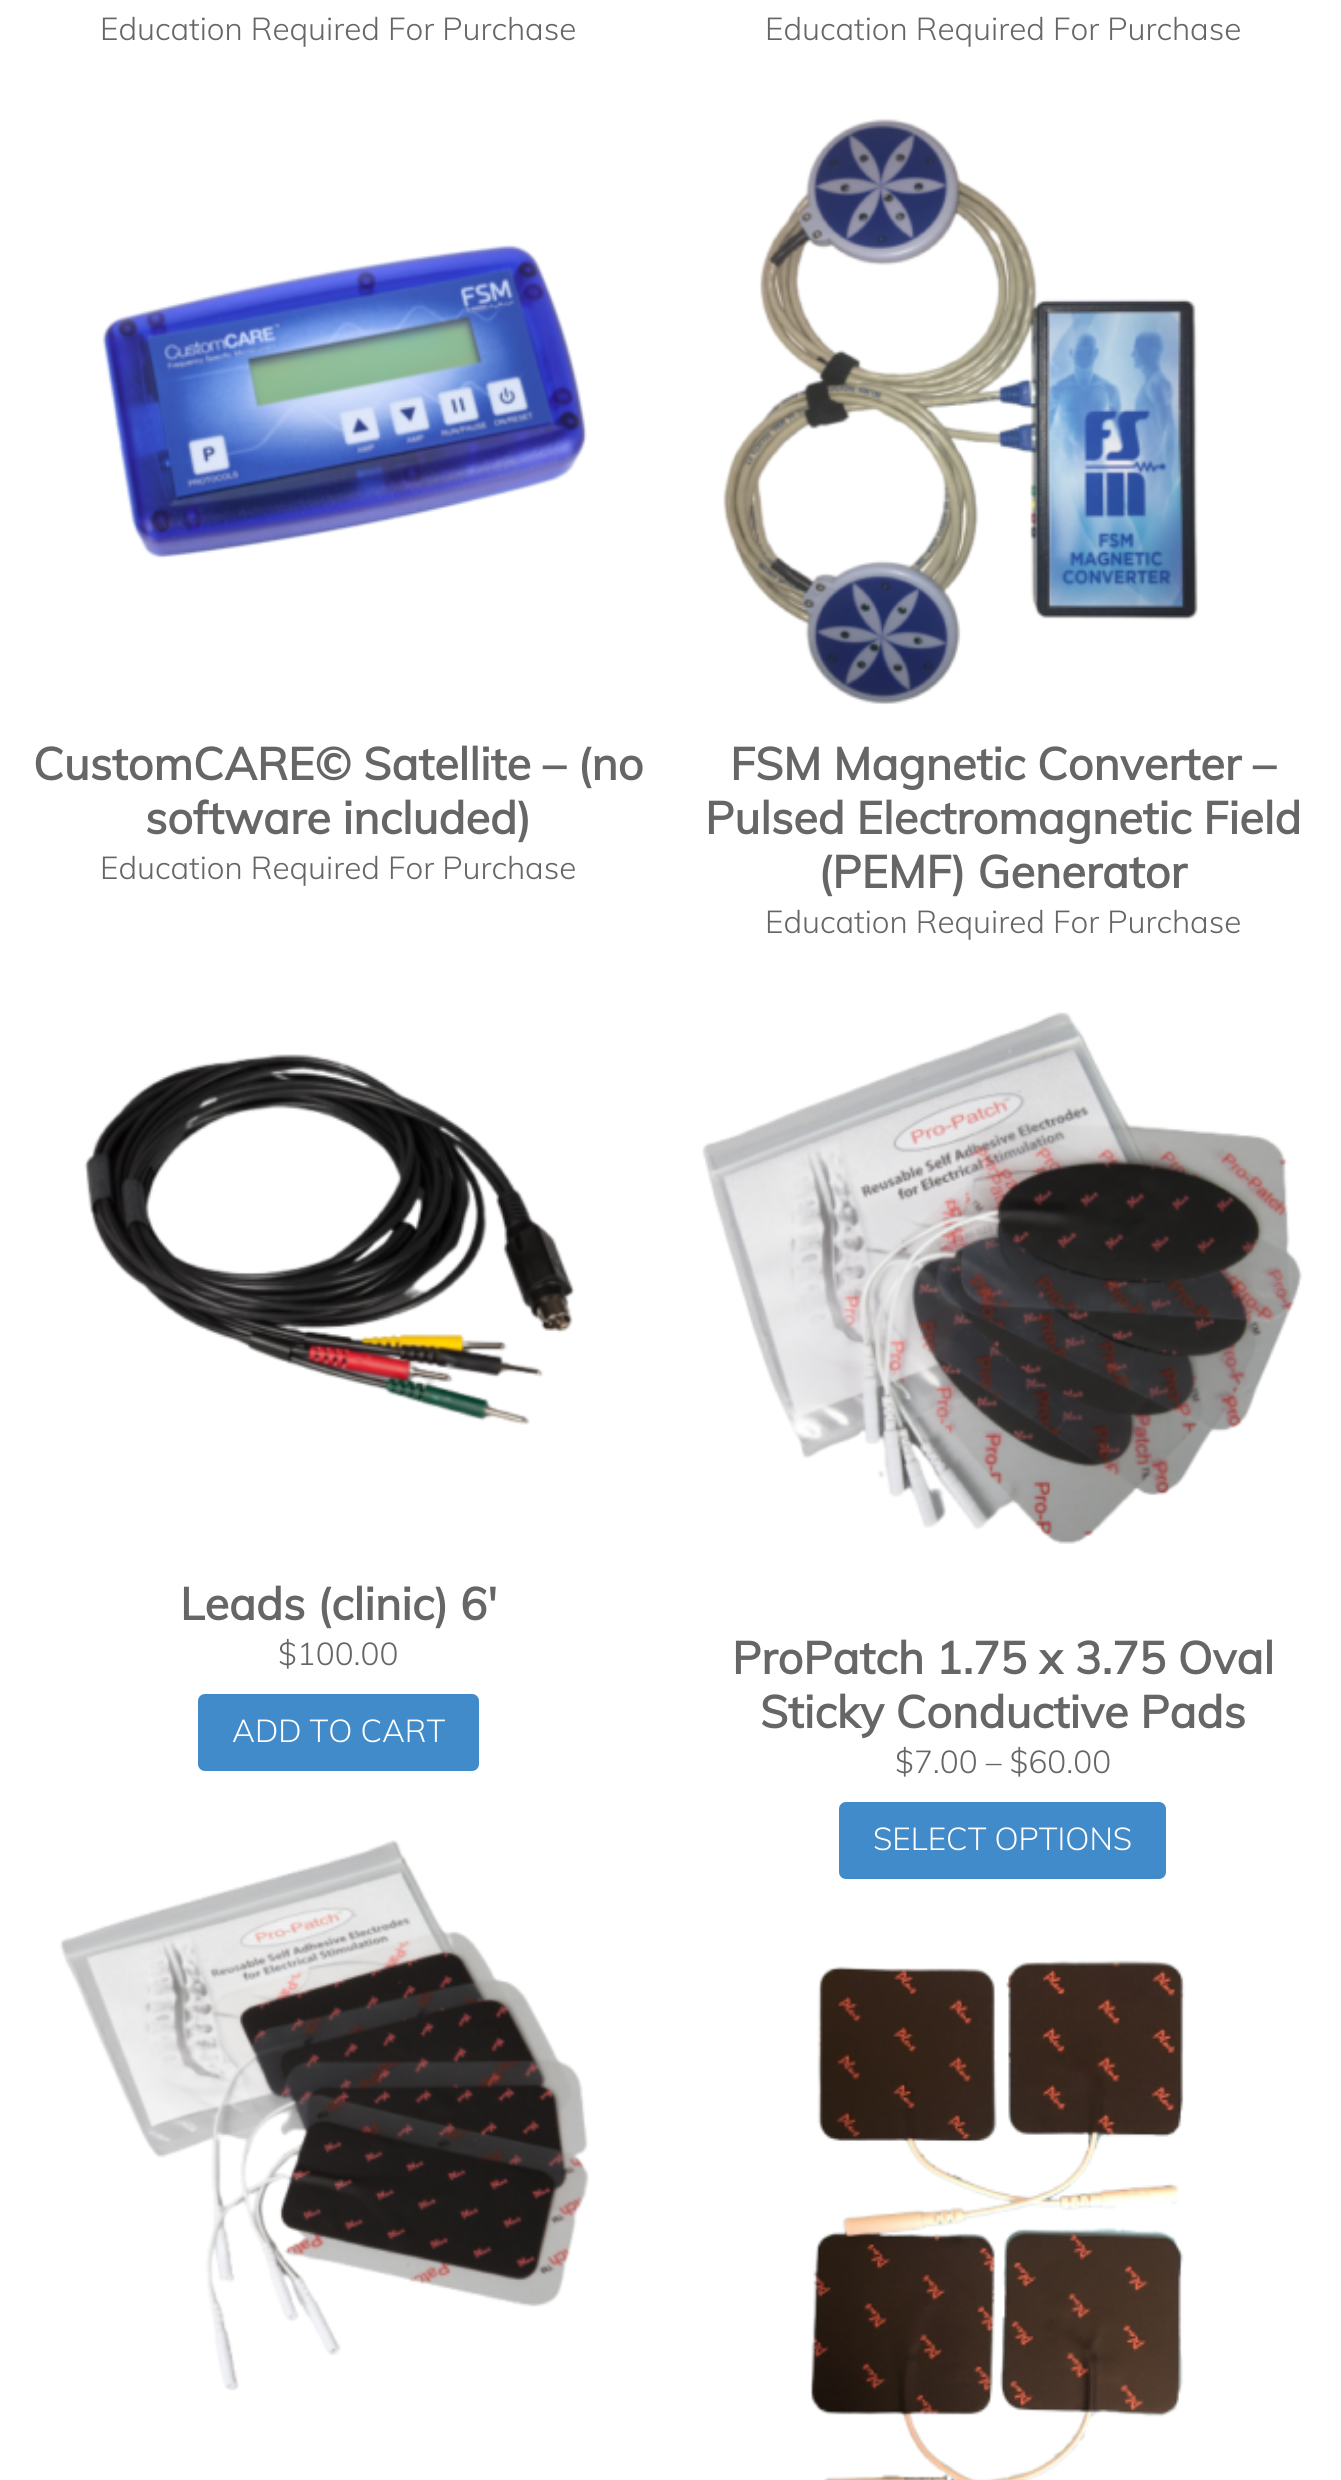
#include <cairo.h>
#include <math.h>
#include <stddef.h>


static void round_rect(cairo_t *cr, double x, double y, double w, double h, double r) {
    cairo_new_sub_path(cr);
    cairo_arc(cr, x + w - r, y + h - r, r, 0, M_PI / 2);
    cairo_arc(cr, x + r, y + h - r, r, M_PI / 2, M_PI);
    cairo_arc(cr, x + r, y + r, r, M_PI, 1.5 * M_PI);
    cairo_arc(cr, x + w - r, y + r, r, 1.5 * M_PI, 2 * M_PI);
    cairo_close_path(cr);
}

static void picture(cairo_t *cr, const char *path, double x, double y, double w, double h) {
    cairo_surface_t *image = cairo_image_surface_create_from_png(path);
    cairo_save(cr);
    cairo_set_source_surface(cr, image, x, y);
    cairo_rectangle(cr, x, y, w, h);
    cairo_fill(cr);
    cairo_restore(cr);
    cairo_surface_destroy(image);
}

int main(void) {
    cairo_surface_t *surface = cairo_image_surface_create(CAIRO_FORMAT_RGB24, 1341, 2480);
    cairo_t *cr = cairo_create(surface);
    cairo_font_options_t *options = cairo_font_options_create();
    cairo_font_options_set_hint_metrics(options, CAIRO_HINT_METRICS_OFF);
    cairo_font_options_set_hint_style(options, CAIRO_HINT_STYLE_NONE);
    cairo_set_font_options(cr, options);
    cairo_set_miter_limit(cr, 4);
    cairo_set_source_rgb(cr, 1, 1, 1);
    cairo_paint(cr);
    cairo_select_font_face(cr, "Muli Light", CAIRO_FONT_SLANT_NORMAL, CAIRO_FONT_WEIGHT_NORMAL);
    cairo_set_font_size(cr, 31.5);
    cairo_set_source_rgb(cr, 0.4, 0.4, 0.4);
    cairo_move_to(cr, 100, 40);
    cairo_show_text(cr, "Education Required For Purchase");
    cairo_move_to(cr, 765, 40);
    cairo_show_text(cr, "Education Required For Purchase");
    picture(cr, "img1.png", 102, 244, 485, 315);
    cairo_select_font_face(cr, "Muli", CAIRO_FONT_SLANT_NORMAL, CAIRO_FONT_WEIGHT_BOLD);
    cairo_set_font_size(cr, 45);
    cairo_move_to(cr, 33, 780);
    cairo_show_text(cr, "CustomCARE© Satellite – (no");
    cairo_move_to(cr, 145, 834);
    cairo_show_text(cr, "software included)");
    cairo_select_font_face(cr, "Muli Light", CAIRO_FONT_SLANT_NORMAL, CAIRO_FONT_WEIGHT_NORMAL);
    cairo_set_font_size(cr, 31.5);
    cairo_move_to(cr, 100, 879);
    cairo_show_text(cr, "Education Required For Purchase");
    picture(cr, "img2.png", 723, 118, 475, 587);
    cairo_select_font_face(cr, "Muli", CAIRO_FONT_SLANT_NORMAL, CAIRO_FONT_WEIGHT_BOLD);
    cairo_set_font_size(cr, 45);
    cairo_move_to(cr, 730, 780);
    cairo_show_text(cr, "FSM Magnetic Converter –");
    cairo_move_to(cr, 705, 834);
    cairo_show_text(cr, "Pulsed Electromagnetic Field");
    cairo_move_to(cr, 818, 888);
    cairo_show_text(cr, "(PEMF) Generator");
    cairo_select_font_face(cr, "Muli Light", CAIRO_FONT_SLANT_NORMAL, CAIRO_FONT_WEIGHT_NORMAL);
    cairo_set_font_size(cr, 31.5);
    cairo_move_to(cr, 765, 933);
    cairo_show_text(cr, "Education Required For Purchase");
    picture(cr, "img3.png", 84, 1054, 491, 371);
    cairo_select_font_face(cr, "Muli", CAIRO_FONT_SLANT_NORMAL, CAIRO_FONT_WEIGHT_BOLD);
    cairo_set_font_size(cr, 45);
    cairo_move_to(cr, 180, 1620);
    cairo_show_text(cr, "Leads (clinic) 6′");
    cairo_select_font_face(cr, "Muli Light", CAIRO_FONT_SLANT_NORMAL, CAIRO_FONT_WEIGHT_NORMAL);
    cairo_set_font_size(cr, 31.5);
    cairo_move_to(cr, 278, 1665);
    cairo_show_text(cr, "$100.00");
    cairo_set_source_rgb(cr, 0.259, 0.545, 0.792);
    round_rect(cr, 198, 1694, 281, 77, 7);
    cairo_fill(cr);
    cairo_set_source_rgb(cr, 1, 1, 1);
    cairo_move_to(cr, 232, 1742);
    cairo_show_text(cr, "ADD TO CART");
    picture(cr, "img4.png", 701, 1012, 601, 532);
    cairo_select_font_face(cr, "Muli", CAIRO_FONT_SLANT_NORMAL, CAIRO_FONT_WEIGHT_BOLD);
    cairo_set_font_size(cr, 45);
    cairo_set_source_rgb(cr, 0.4, 0.4, 0.4);
    cairo_move_to(cr, 732, 1674);
    cairo_show_text(cr, "ProPatch 1.75 x 3.75 Oval");
    cairo_move_to(cr, 760, 1728);
    cairo_show_text(cr, "Sticky Conductive Pads");
    cairo_select_font_face(cr, "Muli Light", CAIRO_FONT_SLANT_NORMAL, CAIRO_FONT_WEIGHT_NORMAL);
    cairo_set_font_size(cr, 31.5);
    cairo_move_to(cr, 895, 1773);
    cairo_show_text(cr, "$7.00 – $60.00");
    cairo_set_source_rgb(cr, 0.259, 0.545, 0.792);
    round_rect(cr, 839, 1802, 327, 77, 7);
    cairo_fill(cr);
    cairo_set_source_rgb(cr, 1, 1, 1);
    cairo_move_to(cr, 873, 1850);
    cairo_show_text(cr, "SELECT OPTIONS");
    picture(cr, "img5.png", 60, 1840, 529, 551);
    picture(cr, "img6.png", 810, 1960, 375, 520);
    cairo_surface_write_to_png(surface, "page.png");
    cairo_font_options_destroy(options);
    cairo_destroy(cr);
    cairo_surface_destroy(surface);
    return 0;
}
